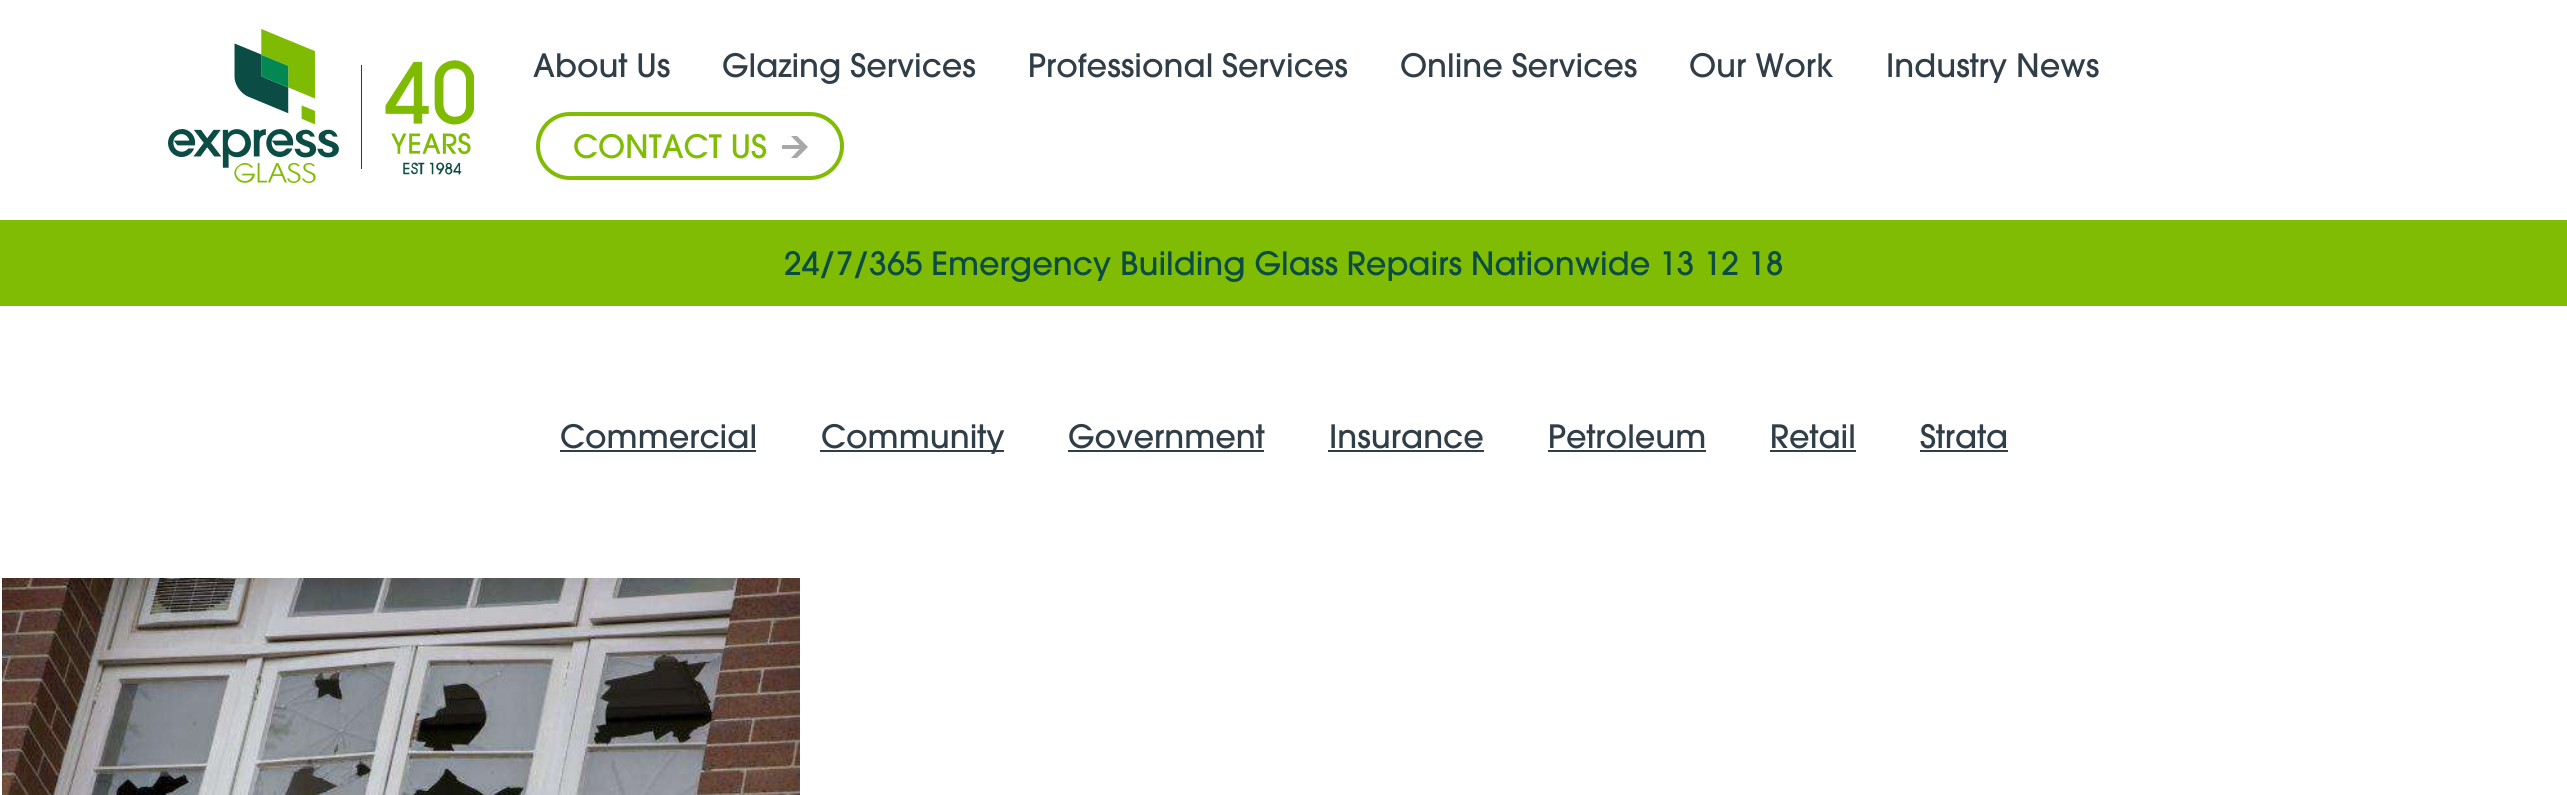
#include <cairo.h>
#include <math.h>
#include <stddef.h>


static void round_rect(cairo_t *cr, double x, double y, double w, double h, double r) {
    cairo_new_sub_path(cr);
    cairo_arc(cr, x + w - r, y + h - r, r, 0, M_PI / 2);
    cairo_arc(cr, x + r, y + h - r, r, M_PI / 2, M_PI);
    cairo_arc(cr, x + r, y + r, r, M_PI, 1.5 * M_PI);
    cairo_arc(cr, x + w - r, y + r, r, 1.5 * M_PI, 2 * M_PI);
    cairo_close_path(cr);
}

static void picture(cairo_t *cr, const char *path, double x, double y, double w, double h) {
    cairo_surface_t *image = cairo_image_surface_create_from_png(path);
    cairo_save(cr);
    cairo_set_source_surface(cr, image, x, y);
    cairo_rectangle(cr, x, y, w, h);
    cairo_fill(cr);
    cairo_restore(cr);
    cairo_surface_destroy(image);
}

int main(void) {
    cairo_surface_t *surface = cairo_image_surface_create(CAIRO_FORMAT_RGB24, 2567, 795);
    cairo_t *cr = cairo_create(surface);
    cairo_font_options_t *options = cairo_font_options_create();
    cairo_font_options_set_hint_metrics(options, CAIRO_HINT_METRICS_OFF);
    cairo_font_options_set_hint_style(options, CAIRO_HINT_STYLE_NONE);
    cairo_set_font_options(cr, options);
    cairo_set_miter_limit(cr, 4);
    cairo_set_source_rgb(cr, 1, 1, 1);
    cairo_paint(cr);
    picture(cr, "img1.png", 168, 29, 306, 154);
    cairo_select_font_face(cr, "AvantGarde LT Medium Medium", CAIRO_FONT_SLANT_NORMAL, CAIRO_FONT_WEIGHT_NORMAL);
    cairo_set_font_size(cr, 32);
    cairo_set_source_rgb(cr, 0.188, 0.243, 0.282);
    cairo_move_to(cr, 533, 77);
    cairo_show_text(cr, "About Us");
    cairo_move_to(cr, 722, 77);
    cairo_show_text(cr, "Glazing Services");
    cairo_move_to(cr, 1028, 77);
    cairo_show_text(cr, "Professional Services");
    cairo_move_to(cr, 1400, 77);
    cairo_show_text(cr, "Online Services");
    cairo_move_to(cr, 1689, 77);
    cairo_show_text(cr, "Our Work");
    cairo_move_to(cr, 1886, 77);
    cairo_show_text(cr, "Industry News");
    round_rect(cr, 538, 114, 304, 64, 32);
    cairo_set_source_rgb(cr, 0.498, 0.737, 0.012);
    cairo_set_line_width(cr, 4);
    cairo_stroke(cr);
    cairo_move_to(cr, 573, 158);
    cairo_show_text(cr, "CONTACT US");
    cairo_set_source_rgb(cr, 0.659, 0.659, 0.659);
    cairo_new_path(cr);
    cairo_move_to(cr, 797, 158);
    cairo_line_to(cr, 791, 158);
    cairo_line_to(cr, 799.5, 149);
    cairo_line_to(cr, 782, 149);
    cairo_line_to(cr, 782, 145);
    cairo_line_to(cr, 799.5, 145);
    cairo_line_to(cr, 791, 136);
    cairo_line_to(cr, 797, 136);
    cairo_line_to(cr, 808, 147);
    cairo_close_path(cr);
    cairo_fill(cr);
    cairo_set_source_rgb(cr, 0.498, 0.737, 0.012);
    cairo_rectangle(cr, 0, 220, 2567, 86);
    cairo_fill(cr);
    cairo_set_source_rgb(cr, 0.043, 0.298, 0.271);
    cairo_move_to(cr, 784, 275);
    cairo_show_text(cr, "24/7/365 Emergency Building Glass Repairs Nationwide 13 12 18");
    cairo_set_source_rgb(cr, 0.188, 0.243, 0.282);
    cairo_move_to(cr, 560, 448);
    cairo_show_text(cr, "Commercial");
    cairo_rectangle(cr, 560, 450, 196, 2);
    cairo_fill(cr);
    cairo_rectangle(cr, 820, 450, 184, 2);
    cairo_fill(cr);
    cairo_move_to(cr, 821, 448);
    cairo_show_text(cr, "Community");
    cairo_move_to(cr, 1068, 448);
    cairo_show_text(cr, "Government");
    cairo_rectangle(cr, 1068, 450, 196, 2);
    cairo_fill(cr);
    cairo_move_to(cr, 1329, 448);
    cairo_show_text(cr, "Insurance");
    cairo_rectangle(cr, 1328, 450, 156, 2);
    cairo_fill(cr);
    cairo_move_to(cr, 1548, 448);
    cairo_show_text(cr, "Petroleum");
    cairo_rectangle(cr, 1548, 450, 158, 2);
    cairo_fill(cr);
    cairo_move_to(cr, 1770, 448);
    cairo_show_text(cr, "Retail");
    cairo_rectangle(cr, 1770, 450, 86, 2);
    cairo_fill(cr);
    cairo_move_to(cr, 1920, 448);
    cairo_show_text(cr, "Strata");
    cairo_rectangle(cr, 1920, 450, 88, 2);
    cairo_fill(cr);
    picture(cr, "img2.png", 2, 578, 798, 217);
    cairo_surface_write_to_png(surface, "page.png");
    cairo_font_options_destroy(options);
    cairo_destroy(cr);
    cairo_surface_destroy(surface);
    return 0;
}
